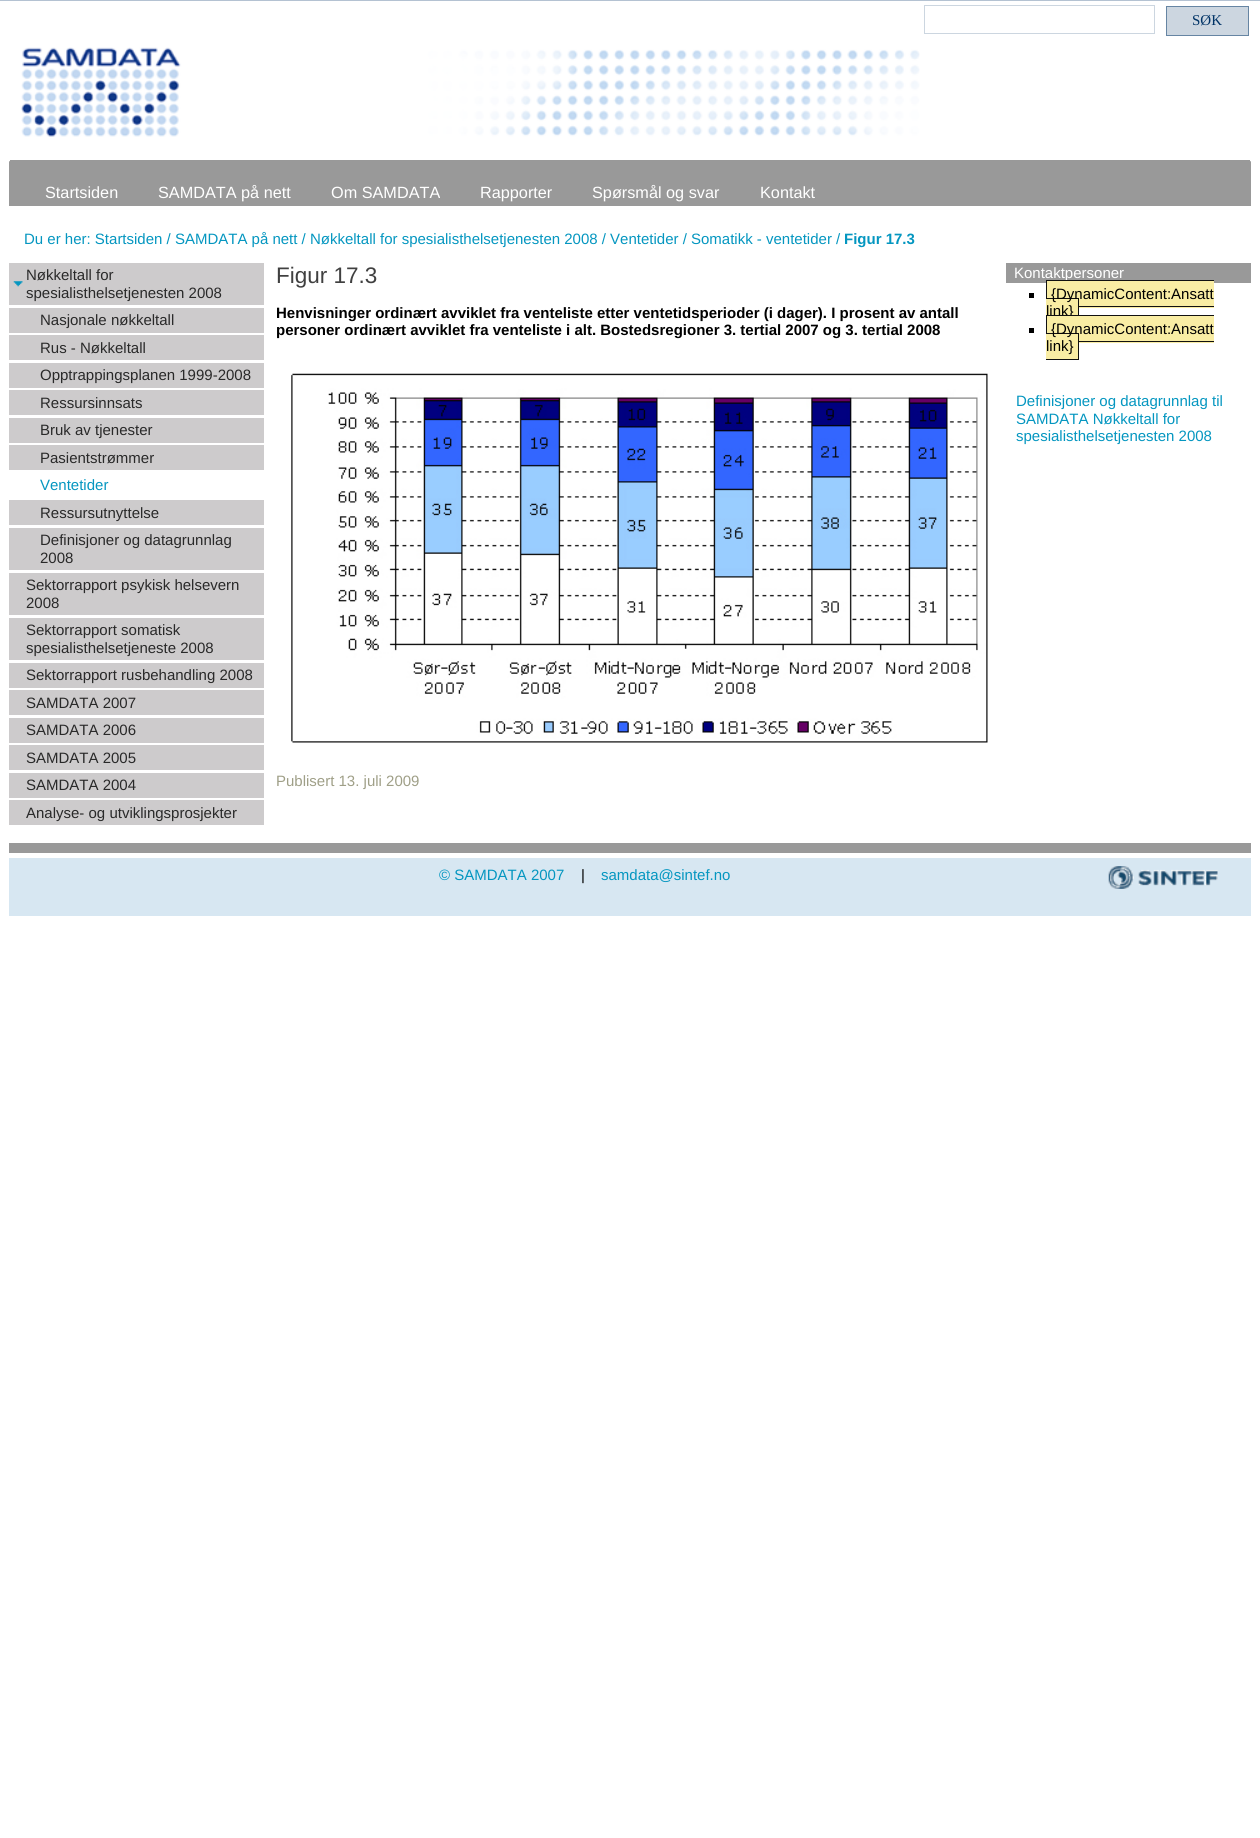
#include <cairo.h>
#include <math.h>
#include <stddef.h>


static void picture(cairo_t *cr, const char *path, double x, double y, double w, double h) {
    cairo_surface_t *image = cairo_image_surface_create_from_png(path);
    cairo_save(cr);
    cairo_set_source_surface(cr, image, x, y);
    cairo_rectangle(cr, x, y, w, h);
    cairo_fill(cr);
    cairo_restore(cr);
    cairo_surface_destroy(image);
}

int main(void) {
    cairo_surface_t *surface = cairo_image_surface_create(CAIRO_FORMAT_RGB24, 1260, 1838);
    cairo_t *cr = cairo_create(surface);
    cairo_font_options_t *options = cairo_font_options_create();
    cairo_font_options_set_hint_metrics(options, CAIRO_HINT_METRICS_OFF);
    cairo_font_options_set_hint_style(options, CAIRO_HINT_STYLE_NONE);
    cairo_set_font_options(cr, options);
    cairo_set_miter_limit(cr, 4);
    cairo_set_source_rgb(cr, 1, 1, 1);
    cairo_paint(cr);
    cairo_set_source_rgb(cr, 0.706, 0.761, 0.824);
    cairo_rectangle(cr, 0, 0, 1260, 1);
    cairo_fill(cr);
    cairo_rectangle(cr, 924.5, 5.5, 230, 28);
    cairo_set_source_rgb(cr, 0.8, 0.839, 0.878);
    cairo_set_line_width(cr, 1);
    cairo_stroke(cr);
    cairo_rectangle(cr, 1166.5, 6.5, 82, 29);
    cairo_fill_preserve(cr);
    cairo_set_source_rgb(cr, 0.4, 0.522, 0.639);
    cairo_stroke(cr);
    cairo_select_font_face(cr, "Liberation Serif", CAIRO_FONT_SLANT_NORMAL, CAIRO_FONT_WEIGHT_NORMAL);
    cairo_set_font_size(cr, 15);
    cairo_set_source_rgb(cr, 0, 0.2, 0.4);
    cairo_move_to(cr, 1192, 25);
    cairo_show_text(cr, "SØK");
    picture(cr, "img1.png", 21, 47, 899, 90);
    cairo_set_source_rgb(cr, 0.6, 0.6, 0.6);
    cairo_rectangle(cr, 9, 160, 1242, 46);
    cairo_fill(cr);
    picture(cr, "img2.png", 9, 160, 1, 2);
    picture(cr, "img2.png", 1250, 160, 1, 2);
    cairo_select_font_face(cr, "Liberation Sans", CAIRO_FONT_SLANT_NORMAL, CAIRO_FONT_WEIGHT_NORMAL);
    cairo_set_font_size(cr, 16.25);
    cairo_set_source_rgb(cr, 1, 1, 1);
    cairo_move_to(cr, 45, 198);
    cairo_show_text(cr, "Startsiden");
    cairo_move_to(cr, 158, 198);
    cairo_show_text(cr, "SAMDATA på nett");
    cairo_move_to(cr, 331, 198);
    cairo_show_text(cr, "Om SAMDATA");
    cairo_move_to(cr, 480, 198);
    cairo_show_text(cr, "Rapporter");
    cairo_move_to(cr, 592, 198);
    cairo_show_text(cr, "Spørsmål og svar");
    cairo_move_to(cr, 760, 198);
    cairo_show_text(cr, "Kontakt");
    cairo_set_font_size(cr, 15);
    cairo_set_source_rgb(cr, 0.016, 0.588, 0.753);
    cairo_move_to(cr, 24, 244);
    cairo_show_text(cr, "Du er her: Startsiden / SAMDATA på nett / Nøkkeltall for spesialisthelsetjenesten 2008 / Ventetider / Somatikk - ventetider /");
    cairo_select_font_face(cr, "Liberation Sans", CAIRO_FONT_SLANT_NORMAL, CAIRO_FONT_WEIGHT_BOLD);
    cairo_move_to(cr, 844, 244);
    cairo_show_text(cr, "Figur 17.3");
    cairo_set_source_rgb(cr, 0.6, 0.6, 0.6);
    cairo_rectangle(cr, 9, 843, 1242, 10);
    cairo_fill(cr);
    cairo_set_source_rgb(cr, 0.804, 0.796, 0.8);
    cairo_rectangle(cr, 9, 263, 255, 307);
    cairo_fill(cr);
    picture(cr, "img3.png", 13, 281, 10, 6);
    cairo_select_font_face(cr, "Liberation Sans", CAIRO_FONT_SLANT_NORMAL, CAIRO_FONT_WEIGHT_NORMAL);
    cairo_set_source_rgb(cr, 0.161, 0.161, 0.161);
    cairo_move_to(cr, 26, 280);
    cairo_show_text(cr, "Nøkkeltall for");
    cairo_move_to(cr, 26, 298);
    cairo_show_text(cr, "spesialisthelsetjenesten 2008");
    cairo_set_source_rgb(cr, 1, 1, 1);
    cairo_rectangle(cr, 9, 305, 255, 3);
    cairo_fill(cr);
    cairo_rectangle(cr, 9, 333, 255, 2);
    cairo_fill(cr);
    cairo_set_source_rgb(cr, 0.161, 0.161, 0.161);
    cairo_move_to(cr, 40, 325);
    cairo_show_text(cr, "Nasjonale nøkkeltall");
    cairo_set_source_rgb(cr, 1, 1, 1);
    cairo_rectangle(cr, 9, 360, 255, 3);
    cairo_fill(cr);
    cairo_set_source_rgb(cr, 0.161, 0.161, 0.161);
    cairo_move_to(cr, 40, 353);
    cairo_show_text(cr, "Rus - Nøkkeltall");
    cairo_set_source_rgb(cr, 1, 1, 1);
    cairo_rectangle(cr, 9, 388, 255, 2);
    cairo_fill(cr);
    cairo_set_source_rgb(cr, 0.161, 0.161, 0.161);
    cairo_move_to(cr, 40, 380);
    cairo_show_text(cr, "Opptrappingsplanen 1999-2008");
    cairo_set_source_rgb(cr, 1, 1, 1);
    cairo_rectangle(cr, 9, 415, 255, 3);
    cairo_fill(cr);
    cairo_set_source_rgb(cr, 0.161, 0.161, 0.161);
    cairo_move_to(cr, 40, 408);
    cairo_show_text(cr, "Ressursinnsats");
    cairo_set_source_rgb(cr, 1, 1, 1);
    cairo_rectangle(cr, 9, 443, 255, 2);
    cairo_fill(cr);
    cairo_set_source_rgb(cr, 0.161, 0.161, 0.161);
    cairo_move_to(cr, 40, 435);
    cairo_show_text(cr, "Bruk av tjenester");
    cairo_set_source_rgb(cr, 1, 1, 1);
    cairo_rectangle(cr, 9, 470, 255, 3);
    cairo_fill(cr);
    cairo_set_source_rgb(cr, 0.161, 0.161, 0.161);
    cairo_move_to(cr, 40, 463);
    cairo_show_text(cr, "Pasientstrømmer");
    cairo_set_source_rgb(cr, 1, 1, 1);
    cairo_rectangle(cr, 9, 473, 255, 27);
    cairo_fill(cr);
    cairo_set_source_rgb(cr, 0.016, 0.588, 0.753);
    cairo_move_to(cr, 40, 490);
    cairo_show_text(cr, "Ventetider");
    cairo_set_source_rgb(cr, 1, 1, 1);
    cairo_rectangle(cr, 9, 525, 255, 3);
    cairo_fill(cr);
    cairo_set_source_rgb(cr, 0.161, 0.161, 0.161);
    cairo_move_to(cr, 40, 518);
    cairo_show_text(cr, "Ressursutnyttelse");
    cairo_move_to(cr, 40, 545);
    cairo_show_text(cr, "Definisjoner og datagrunnlag");
    cairo_move_to(cr, 40, 563);
    cairo_show_text(cr, "2008");
    cairo_set_source_rgb(cr, 0.804, 0.796, 0.8);
    cairo_rectangle(cr, 9, 573, 255, 42);
    cairo_fill(cr);
    cairo_set_source_rgb(cr, 0.161, 0.161, 0.161);
    cairo_move_to(cr, 26, 590);
    cairo_show_text(cr, "Sektorrapport psykisk helsevern");
    cairo_move_to(cr, 26, 608);
    cairo_show_text(cr, "2008");
    cairo_set_source_rgb(cr, 0.804, 0.796, 0.8);
    cairo_rectangle(cr, 9, 618, 255, 42);
    cairo_fill(cr);
    cairo_set_source_rgb(cr, 0.161, 0.161, 0.161);
    cairo_move_to(cr, 26, 635);
    cairo_show_text(cr, "Sektorrapport somatisk");
    cairo_move_to(cr, 26, 653);
    cairo_show_text(cr, "spesialisthelsetjeneste 2008");
    cairo_set_source_rgb(cr, 0.804, 0.796, 0.8);
    cairo_rectangle(cr, 9, 663, 255, 25);
    cairo_fill(cr);
    cairo_set_source_rgb(cr, 0.161, 0.161, 0.161);
    cairo_move_to(cr, 26, 680);
    cairo_show_text(cr, "Sektorrapport rusbehandling 2008");
    cairo_set_source_rgb(cr, 0.804, 0.796, 0.8);
    cairo_rectangle(cr, 9, 690, 255, 25);
    cairo_fill(cr);
    cairo_set_source_rgb(cr, 0.161, 0.161, 0.161);
    cairo_move_to(cr, 26, 708);
    cairo_show_text(cr, "SAMDATA 2007");
    cairo_set_source_rgb(cr, 0.804, 0.796, 0.8);
    cairo_rectangle(cr, 9, 718, 255, 25);
    cairo_fill(cr);
    cairo_set_source_rgb(cr, 0.161, 0.161, 0.161);
    cairo_move_to(cr, 26, 735);
    cairo_show_text(cr, "SAMDATA 2006");
    cairo_set_source_rgb(cr, 0.804, 0.796, 0.8);
    cairo_rectangle(cr, 9, 745, 255, 25);
    cairo_fill(cr);
    cairo_set_source_rgb(cr, 0.161, 0.161, 0.161);
    cairo_move_to(cr, 26, 763);
    cairo_show_text(cr, "SAMDATA 2005");
    cairo_set_source_rgb(cr, 0.804, 0.796, 0.8);
    cairo_rectangle(cr, 9, 773, 255, 25);
    cairo_fill(cr);
    cairo_set_source_rgb(cr, 0.161, 0.161, 0.161);
    cairo_move_to(cr, 26, 790);
    cairo_show_text(cr, "SAMDATA 2004");
    cairo_set_source_rgb(cr, 0.804, 0.796, 0.8);
    cairo_rectangle(cr, 9, 800, 255, 25);
    cairo_fill(cr);
    cairo_set_source_rgb(cr, 0.161, 0.161, 0.161);
    cairo_move_to(cr, 26, 818);
    cairo_show_text(cr, "Analyse- og utviklingsprosjekter");
    cairo_set_font_size(cr, 22.5);
    cairo_set_source_rgb(cr, 0.251, 0.251, 0.251);
    cairo_move_to(cr, 276, 283);
    cairo_show_text(cr, "Figur 17.3");
    cairo_select_font_face(cr, "Liberation Sans", CAIRO_FONT_SLANT_NORMAL, CAIRO_FONT_WEIGHT_BOLD);
    cairo_set_font_size(cr, 15);
    cairo_set_source_rgb(cr, 0, 0, 0);
    cairo_move_to(cr, 276, 318);
    cairo_show_text(cr, "Henvisninger ordinært avviklet fra venteliste etter ventetidsperioder (i dager). I prosent av antall");
    cairo_move_to(cr, 276, 335);
    cairo_show_text(cr, "personer ordinært avviklet fra venteliste i alt. Bostedsregioner 3. tertial 2007 og 3. tertial 2008");
    picture(cr, "img4.png", 291, 373, 697, 370);
    cairo_select_font_face(cr, "Liberation Sans", CAIRO_FONT_SLANT_NORMAL, CAIRO_FONT_WEIGHT_NORMAL);
    cairo_set_source_rgb(cr, 0.624, 0.624, 0.529);
    cairo_move_to(cr, 276, 786);
    cairo_show_text(cr, "Publisert 13. juli 2009");
    cairo_set_source_rgb(cr, 0.6, 0.6, 0.6);
    cairo_rectangle(cr, 1006, 263, 245, 20);
    cairo_fill(cr);
    cairo_set_source_rgb(cr, 1, 1, 1);
    cairo_move_to(cr, 1014, 278);
    cairo_show_text(cr, "Kontaktpersoner");
    cairo_set_source_rgb(cr, 0, 0, 0);
    cairo_rectangle(cr, 1029, 293, 5, 5);
    cairo_fill(cr);
    cairo_set_source_rgb(cr, 0.973, 0.929, 0.643);
    cairo_rectangle(cr, 1047, 281, 167, 27);
    cairo_fill(cr);
    cairo_set_source_rgb(cr, 0.067, 0.067, 0.067);
    cairo_rectangle(cr, 1046, 298, 33, 1);
    cairo_fill(cr);
    cairo_set_source_rgb(cr, 0.973, 0.929, 0.643);
    cairo_rectangle(cr, 1046, 299, 32, 16);
    cairo_fill(cr);
    cairo_set_source_rgb(cr, 0.067, 0.067, 0.067);
    cairo_rectangle(cr, 1078, 298, 1, 17);
    cairo_fill(cr);
    cairo_set_source_rgb(cr, 0, 0, 0);
    cairo_move_to(cr, 1051, 299);
    cairo_show_text(cr, "{DynamicContent:Ansatt");
    cairo_set_source_rgb(cr, 0.067, 0.067, 0.067);
    cairo_rectangle(cr, 1046, 280, 168, 1);
    cairo_fill(cr);
    cairo_rectangle(cr, 1046, 280, 1, 18);
    cairo_fill(cr);
    cairo_set_source_rgb(cr, 0, 0, 0);
    cairo_move_to(cr, 1046, 316);
    cairo_show_text(cr, "link}");
    cairo_set_source_rgb(cr, 0.067, 0.067, 0.067);
    cairo_rectangle(cr, 1079, 306, 135, 1);
    cairo_fill(cr);
    cairo_set_source_rgb(cr, 0, 0, 0);
    cairo_rectangle(cr, 1029, 328, 5, 5);
    cairo_fill(cr);
    cairo_set_source_rgb(cr, 0.973, 0.929, 0.643);
    cairo_rectangle(cr, 1047, 316, 167, 27);
    cairo_fill(cr);
    cairo_set_source_rgb(cr, 0.067, 0.067, 0.067);
    cairo_rectangle(cr, 1046, 333, 33, 1);
    cairo_fill(cr);
    cairo_set_source_rgb(cr, 0.973, 0.929, 0.643);
    cairo_rectangle(cr, 1046, 334, 32, 25);
    cairo_fill(cr);
    cairo_set_source_rgb(cr, 0.067, 0.067, 0.067);
    cairo_rectangle(cr, 1078, 333, 1, 27);
    cairo_fill(cr);
    cairo_set_source_rgb(cr, 0, 0, 0);
    cairo_move_to(cr, 1051, 334);
    cairo_show_text(cr, "{DynamicContent:Ansatt");
    cairo_set_source_rgb(cr, 0.067, 0.067, 0.067);
    cairo_rectangle(cr, 1046, 315, 168, 1);
    cairo_fill(cr);
    cairo_rectangle(cr, 1046, 315, 1, 18);
    cairo_fill(cr);
    cairo_set_source_rgb(cr, 0, 0, 0);
    cairo_move_to(cr, 1046, 351);
    cairo_show_text(cr, "link}");
    cairo_set_source_rgb(cr, 0.067, 0.067, 0.067);
    cairo_rectangle(cr, 1079, 341, 135, 1);
    cairo_fill(cr);
    cairo_rectangle(cr, 1046, 359, 33, 1);
    cairo_fill(cr);
    cairo_set_source_rgb(cr, 0.016, 0.588, 0.753);
    cairo_move_to(cr, 1016, 406);
    cairo_show_text(cr, "Definisjoner og datagrunnlag til");
    cairo_move_to(cr, 1016, 424);
    cairo_show_text(cr, "SAMDATA Nøkkeltall for");
    cairo_move_to(cr, 1016, 441);
    cairo_show_text(cr, "spesialisthelsetjenesten 2008");
    cairo_set_source_rgb(cr, 0.843, 0.906, 0.949);
    cairo_rectangle(cr, 9, 858, 1242, 58);
    cairo_fill(cr);
    cairo_set_source_rgb(cr, 0.016, 0.588, 0.753);
    cairo_move_to(cr, 439, 880);
    cairo_show_text(cr, "© SAMDATA 2007");
    cairo_set_source_rgb(cr, 0, 0, 0);
    cairo_move_to(cr, 581, 880);
    cairo_show_text(cr, "|");
    cairo_set_source_rgb(cr, 0.016, 0.588, 0.753);
    cairo_move_to(cr, 601, 880);
    cairo_show_text(cr, "samdata@sintef.no");
    picture(cr, "img5.png", 1108, 866, 110, 23);
    cairo_surface_write_to_png(surface, "page.png");
    cairo_font_options_destroy(options);
    cairo_destroy(cr);
    cairo_surface_destroy(surface);
    return 0;
}
